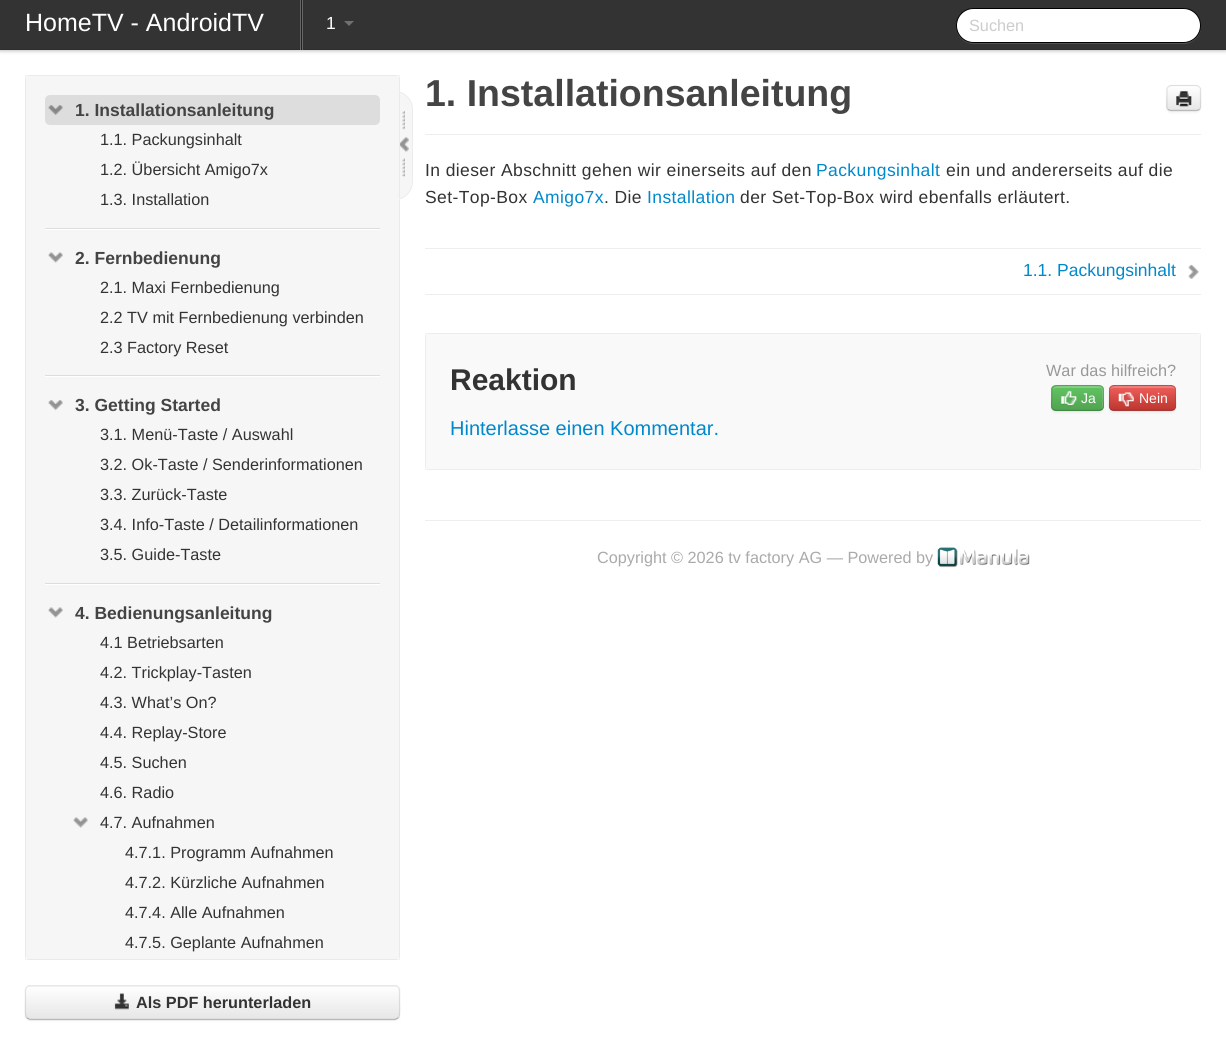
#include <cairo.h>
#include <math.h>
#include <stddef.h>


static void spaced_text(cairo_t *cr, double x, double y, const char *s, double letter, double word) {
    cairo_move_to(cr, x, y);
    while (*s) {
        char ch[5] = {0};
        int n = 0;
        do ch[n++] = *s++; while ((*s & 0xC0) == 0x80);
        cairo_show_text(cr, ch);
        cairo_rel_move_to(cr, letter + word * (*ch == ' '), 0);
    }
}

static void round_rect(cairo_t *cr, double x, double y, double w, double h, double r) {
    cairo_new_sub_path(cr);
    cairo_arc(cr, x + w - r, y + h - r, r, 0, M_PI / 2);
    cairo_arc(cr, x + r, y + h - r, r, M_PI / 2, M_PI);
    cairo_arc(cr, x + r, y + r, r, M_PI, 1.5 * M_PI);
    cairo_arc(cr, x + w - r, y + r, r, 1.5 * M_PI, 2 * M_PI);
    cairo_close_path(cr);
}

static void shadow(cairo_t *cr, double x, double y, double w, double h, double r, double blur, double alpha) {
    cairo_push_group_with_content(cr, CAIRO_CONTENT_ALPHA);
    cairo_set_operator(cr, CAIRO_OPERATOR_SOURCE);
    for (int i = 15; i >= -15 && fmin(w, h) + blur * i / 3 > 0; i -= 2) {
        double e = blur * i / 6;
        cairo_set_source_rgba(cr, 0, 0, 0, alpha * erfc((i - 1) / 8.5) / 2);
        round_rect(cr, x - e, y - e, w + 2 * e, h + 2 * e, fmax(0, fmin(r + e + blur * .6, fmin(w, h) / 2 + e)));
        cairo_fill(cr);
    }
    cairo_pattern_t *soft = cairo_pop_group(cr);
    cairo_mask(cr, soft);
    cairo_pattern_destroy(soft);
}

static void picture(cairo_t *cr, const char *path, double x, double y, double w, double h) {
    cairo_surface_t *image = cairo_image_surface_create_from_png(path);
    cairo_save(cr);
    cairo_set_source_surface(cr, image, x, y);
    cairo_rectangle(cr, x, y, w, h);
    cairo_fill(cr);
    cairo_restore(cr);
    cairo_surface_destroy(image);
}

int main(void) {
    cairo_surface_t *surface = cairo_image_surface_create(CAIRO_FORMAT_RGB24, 1226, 1044);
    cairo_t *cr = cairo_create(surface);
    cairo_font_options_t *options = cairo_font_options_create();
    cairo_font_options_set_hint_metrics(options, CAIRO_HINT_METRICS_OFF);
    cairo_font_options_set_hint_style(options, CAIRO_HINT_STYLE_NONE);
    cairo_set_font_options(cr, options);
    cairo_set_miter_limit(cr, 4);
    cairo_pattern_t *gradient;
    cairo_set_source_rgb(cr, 1, 1, 1);
    cairo_paint(cr);
    cairo_set_source_rgb(cr, 0, 0, 0);
    shadow(cr, 0, 1, 1226, 50, 0, 2, 0.25);
    cairo_set_source_rgb(cr, 0.2, 0.2, 0.2);
    cairo_rectangle(cr, 0, 0, 1226, 49);
    cairo_fill(cr);
    cairo_set_source_rgb(cr, 0.18, 0.18, 0.18);
    cairo_rectangle(cr, 0, 49, 1226, 1);
    cairo_fill(cr);
    cairo_select_font_face(cr, "Liberation Sans", CAIRO_FONT_SLANT_NORMAL, CAIRO_FONT_WEIGHT_NORMAL);
    cairo_set_font_size(cr, 25);
    cairo_set_source_rgb(cr, 1, 1, 1);
    cairo_move_to(cr, 25, 31);
    cairo_show_text(cr, "HomeTV - AndroidTV");
    cairo_set_source_rgb(cr, 0.4, 0.4, 0.4);
    cairo_rectangle(cr, 300, 0, 3, 50);
    cairo_fill(cr);
    cairo_set_source_rgb(cr, 0.133, 0.133, 0.133);
    cairo_rectangle(cr, 301, 0, 1, 50);
    cairo_fill(cr);
    cairo_set_font_size(cr, 17.5);
    cairo_set_source_rgb(cr, 1, 1, 1);
    cairo_move_to(cr, 326, 29);
    cairo_show_text(cr, "1");
    cairo_set_source_rgb(cr, 0.439, 0.439, 0.439);
    cairo_new_path(cr);
    cairo_move_to(cr, 344, 21);
    cairo_line_to(cr, 354, 21);
    cairo_line_to(cr, 349, 26);
    cairo_close_path(cr);
    cairo_fill(cr);
    cairo_set_source_rgb(cr, 0.322, 0.322, 0.322);
    cairo_new_path(cr);
    cairo_move_to(cr, 956, 23);
    cairo_line_to(cr, 956, 26);
    cairo_curve_to(cr, 956, 36, 964, 44, 974, 44);
    cairo_line_to(cr, 1184, 44);
    cairo_curve_to(cr, 1192, 44, 1200, 37, 1201, 29);
    cairo_curve_to(cr, 1199, 37, 1192, 42, 1184, 42);
    cairo_line_to(cr, 974, 42);
    cairo_curve_to(cr, 964, 42, 956, 35, 956, 25);
    cairo_close_path(cr);
    cairo_fill(cr);
    cairo_set_source_rgb(cr, 1, 1, 1);
    round_rect(cr, 956.5, 8.5, 244, 34, 17);
    cairo_fill_preserve(cr);
    cairo_set_source_rgb(cr, 0, 0, 0);
    cairo_set_line_width(cr, 1);
    cairo_stroke(cr);
    cairo_set_font_size(cr, 16.25);
    cairo_set_source_rgb(cr, 0.8, 0.8, 0.8);
    cairo_move_to(cr, 969, 31);
    cairo_show_text(cr, "Suchen");
    cairo_set_source_rgb(cr, 0.961, 0.961, 0.961);
    round_rect(cr, 25, 75, 375, 885, 5);
    cairo_fill(cr);
    cairo_rectangle(cr, 25.5, 75.5, 374, 884);
    cairo_set_source_rgba(cr, 0, 0, 0, 0.05);
    cairo_stroke(cr);
    cairo_set_source_rgb(cr, 0.961, 0.961, 0.961);
    cairo_new_path(cr);
    cairo_move_to(cr, 400, 91);
    cairo_line_to(cr, 394.5, 91);
    cairo_curve_to(cr, 404.5, 91, 413, 99.5, 413, 109.5);
    cairo_line_to(cr, 413, 181.5);
    cairo_curve_to(cr, 413, 191.5, 404.5, 200, 394.5, 200);
    cairo_line_to(cr, 400, 200);
    cairo_close_path(cr);
    cairo_fill(cr);
    cairo_save(cr);
    cairo_rectangle(cr, 400, 79, 25, 137);
    cairo_clip(cr);
    round_rect(cr, 376.5, 91.5, 36, 108, 18);
    cairo_set_source_rgb(cr, 0.922, 0.922, 0.922);
    cairo_stroke(cr);
    cairo_restore(cr);
    cairo_set_source_rgb(cr, 0.867, 0.867, 0.867);
    round_rect(cr, 45, 95, 335, 30, 5);
    cairo_fill(cr);
    picture(cr, "img1.png", 48, 105, 15, 11);
    cairo_select_font_face(cr, "Liberation Sans", CAIRO_FONT_SLANT_NORMAL, CAIRO_FONT_WEIGHT_BOLD);
    cairo_set_font_size(cr, 17.5);
    cairo_set_source_rgb(cr, 0.267, 0.267, 0.267);
    cairo_move_to(cr, 75, 116);
    cairo_show_text(cr, "1. Installationsanleitung");
    cairo_select_font_face(cr, "Liberation Sans", CAIRO_FONT_SLANT_NORMAL, CAIRO_FONT_WEIGHT_NORMAL);
    cairo_set_font_size(cr, 16.25);
    cairo_set_source_rgb(cr, 0.2, 0.2, 0.2);
    cairo_move_to(cr, 100, 145);
    cairo_show_text(cr, "1.1. Packungsinhalt");
    cairo_move_to(cr, 100, 175);
    cairo_show_text(cr, "1.2. Übersicht Amigo7x");
    cairo_move_to(cr, 100, 205);
    cairo_show_text(cr, "1.3. Installation");
    cairo_set_source_rgb(cr, 0.867, 0.867, 0.867);
    cairo_rectangle(cr, 45, 228, 335, 1);
    cairo_fill(cr);
    cairo_set_source_rgb(cr, 1, 1, 1);
    cairo_rectangle(cr, 45, 229, 335, 1);
    cairo_fill(cr);
    picture(cr, "img2.png", 48, 252, 15, 11);
    cairo_select_font_face(cr, "Liberation Sans", CAIRO_FONT_SLANT_NORMAL, CAIRO_FONT_WEIGHT_BOLD);
    cairo_set_font_size(cr, 17.5);
    cairo_set_source_rgb(cr, 0.267, 0.267, 0.267);
    cairo_move_to(cr, 75, 264);
    cairo_show_text(cr, "2. Fernbedienung");
    cairo_select_font_face(cr, "Liberation Sans", CAIRO_FONT_SLANT_NORMAL, CAIRO_FONT_WEIGHT_NORMAL);
    cairo_set_font_size(cr, 16.25);
    cairo_set_source_rgb(cr, 0.2, 0.2, 0.2);
    cairo_move_to(cr, 100, 293);
    cairo_show_text(cr, "2.1. Maxi Fernbedienung");
    cairo_move_to(cr, 100, 323);
    cairo_show_text(cr, "2.2 TV mit Fernbedienung verbinden");
    cairo_move_to(cr, 100, 353);
    cairo_show_text(cr, "2.3 Factory Reset");
    cairo_set_source_rgb(cr, 0.867, 0.867, 0.867);
    cairo_rectangle(cr, 45, 375, 335, 1);
    cairo_fill(cr);
    cairo_set_source_rgb(cr, 1, 1, 1);
    cairo_rectangle(cr, 45, 376, 335, 1);
    cairo_fill(cr);
    picture(cr, "img3.png", 48, 400, 15, 11);
    cairo_select_font_face(cr, "Liberation Sans", CAIRO_FONT_SLANT_NORMAL, CAIRO_FONT_WEIGHT_BOLD);
    cairo_set_font_size(cr, 17.5);
    cairo_set_source_rgb(cr, 0.267, 0.267, 0.267);
    cairo_move_to(cr, 75, 411);
    cairo_show_text(cr, "3. Getting Started");
    cairo_select_font_face(cr, "Liberation Sans", CAIRO_FONT_SLANT_NORMAL, CAIRO_FONT_WEIGHT_NORMAL);
    cairo_set_font_size(cr, 16.25);
    cairo_set_source_rgb(cr, 0.2, 0.2, 0.2);
    cairo_move_to(cr, 100, 440);
    cairo_show_text(cr, "3.1. Menü-Taste / Auswahl");
    cairo_move_to(cr, 100, 470);
    cairo_show_text(cr, "3.2. Ok-Taste / Senderinformationen");
    cairo_move_to(cr, 100, 500);
    cairo_show_text(cr, "3.3. Zurück-Taste");
    cairo_move_to(cr, 100, 530);
    cairo_show_text(cr, "3.4. Info-Taste / Detailinformationen");
    cairo_move_to(cr, 100, 560);
    cairo_show_text(cr, "3.5. Guide-Taste");
    cairo_set_source_rgb(cr, 0.867, 0.867, 0.867);
    cairo_rectangle(cr, 45, 583, 335, 1);
    cairo_fill(cr);
    cairo_set_source_rgb(cr, 1, 1, 1);
    cairo_rectangle(cr, 45, 584, 335, 1);
    cairo_fill(cr);
    picture(cr, "img2.png", 48, 607, 15, 11);
    cairo_select_font_face(cr, "Liberation Sans", CAIRO_FONT_SLANT_NORMAL, CAIRO_FONT_WEIGHT_BOLD);
    cairo_set_font_size(cr, 17.5);
    cairo_set_source_rgb(cr, 0.267, 0.267, 0.267);
    cairo_move_to(cr, 75, 619);
    cairo_show_text(cr, "4. Bedienungsanleitung");
    cairo_select_font_face(cr, "Liberation Sans", CAIRO_FONT_SLANT_NORMAL, CAIRO_FONT_WEIGHT_NORMAL);
    cairo_set_font_size(cr, 16.25);
    cairo_set_source_rgb(cr, 0.2, 0.2, 0.2);
    cairo_move_to(cr, 100, 648);
    cairo_show_text(cr, "4.1 Betriebsarten");
    cairo_move_to(cr, 100, 678);
    cairo_show_text(cr, "4.2. Trickplay-Tasten");
    cairo_move_to(cr, 100, 708);
    cairo_show_text(cr, "4.3. What’s On?");
    cairo_move_to(cr, 100, 738);
    cairo_show_text(cr, "4.4. Replay-Store");
    cairo_move_to(cr, 100, 768);
    cairo_show_text(cr, "4.5. Suchen");
    cairo_move_to(cr, 100, 798);
    cairo_show_text(cr, "4.6. Radio");
    picture(cr, "img4.png", 73, 817, 15, 11);
    cairo_move_to(cr, 100, 828);
    cairo_show_text(cr, "4.7. Aufnahmen");
    cairo_move_to(cr, 125, 858);
    cairo_show_text(cr, "4.7.1. Programm Aufnahmen");
    cairo_move_to(cr, 125, 888);
    cairo_show_text(cr, "4.7.2. Kürzliche Aufnahmen");
    cairo_move_to(cr, 125, 918);
    cairo_show_text(cr, "4.7.4. Alle Aufnahmen");
    cairo_move_to(cr, 125, 948);
    cairo_show_text(cr, "4.7.5. Geplante Aufnahmen");
    picture(cr, "img5.png", 402, 111, 3, 19);
    picture(cr, "img6.png", 400, 137, 9, 16);
    picture(cr, "img7.png", 402, 158, 3, 19);
    cairo_set_source_rgb(cr, 0, 0, 0);
    shadow(cr, 25, 986, 375, 35, 5, 1, 0.05);
    cairo_set_source_rgb(cr, 0.961, 0.961, 0.961);
    round_rect(cr, 25, 985, 375, 35, 5);
    cairo_fill(cr);
    cairo_save(cr);
    round_rect(cr, 25, 985, 375, 35, 5);
    cairo_clip(cr);
    gradient = cairo_pattern_create_linear(213, 986, 213, 1019);
    cairo_pattern_add_color_stop_rgba(gradient, 0, 1, 1, 1, 1);
    cairo_pattern_add_color_stop_rgba(gradient, 1, 0.902, 0.902, 0.902, 1);
    cairo_set_source(cr, gradient);
    cairo_pattern_destroy(gradient);
    cairo_rectangle(cr, 25, 986, 375, 33);
    cairo_fill(cr);
    cairo_restore(cr);
    cairo_new_path(cr);
    cairo_move_to(cr, 398, 1018);
    cairo_line_to(cr, 395, 1019.5);
    cairo_line_to(cr, 30, 1019.5);
    cairo_line_to(cr, 27, 1018);
    cairo_set_source_rgba(cr, 0, 0, 0, 0.25);
    cairo_set_line_width(cr, 1.2);
    cairo_stroke(cr);
    cairo_new_path(cr);
    cairo_move_to(cr, 27, 1018);
    cairo_curve_to(cr, 24.5, 1015.5, 25.5, 1005.5, 25.5, 1002.5);
    cairo_line_to(cr, 25.5, 994);
    cairo_curve_to(cr, 25.5, 991, 25, 987.5, 28.5, 986);
    cairo_line_to(cr, 396.5, 986);
    cairo_curve_to(cr, 400, 987.5, 399.5, 991, 399.5, 994);
    cairo_line_to(cr, 399.5, 1002.5);
    cairo_curve_to(cr, 399.5, 1005.5, 400.5, 1015.5, 398, 1018);
    cairo_set_source_rgba(cr, 0, 0, 0, 0.1);
    cairo_stroke(cr);
    picture(cr, "img8.png", 114, 993, 15, 17);
    cairo_select_font_face(cr, "Liberation Sans", CAIRO_FONT_SLANT_NORMAL, CAIRO_FONT_WEIGHT_BOLD);
    cairo_set_source_rgb(cr, 0.2, 0.2, 0.2);
    cairo_move_to(cr, 136, 1008);
    cairo_show_text(cr, "Als PDF herunterladen");
    cairo_set_source_rgb(cr, 0.933, 0.933, 0.933);
    cairo_rectangle(cr, 425, 134, 776, 1);
    cairo_fill(cr);
    cairo_set_font_size(cr, 37.5);
    cairo_set_source_rgb(cr, 0.267, 0.267, 0.267);
    cairo_move_to(cr, 425, 106);
    cairo_show_text(cr, "1. Installationsanleitung");
    cairo_set_source_rgb(cr, 0, 0, 0);
    shadow(cr, 1166, 86, 35, 27, 5, 1, 0.05);
    cairo_set_source_rgb(cr, 0.961, 0.961, 0.961);
    round_rect(cr, 1166, 85, 35, 26, 5);
    cairo_fill(cr);
    cairo_save(cr);
    round_rect(cr, 1166, 85, 35, 26, 5);
    cairo_clip(cr);
    gradient = cairo_pattern_create_linear(1184, 86, 1184, 110);
    cairo_pattern_add_color_stop_rgba(gradient, 0, 1, 1, 1, 1);
    cairo_pattern_add_color_stop_rgba(gradient, 1, 0.902, 0.902, 0.902, 1);
    cairo_set_source(cr, gradient);
    cairo_pattern_destroy(gradient);
    cairo_rectangle(cr, 1166, 86, 35, 24);
    cairo_fill(cr);
    cairo_restore(cr);
    cairo_new_path(cr);
    cairo_move_to(cr, 1199.5, 109.5);
    cairo_curve_to(cr, 1198.5, 110, 1197.5, 110.5, 1196, 110.5);
    cairo_line_to(cr, 1171, 110.5);
    cairo_curve_to(cr, 1170, 110.5, 1169, 110, 1168, 109.5);
    cairo_set_source_rgba(cr, 0, 0, 0, 0.25);
    cairo_stroke(cr);
    cairo_new_path(cr);
    cairo_move_to(cr, 1168, 109.5);
    cairo_curve_to(cr, 1166.5, 108, 1167, 105.5, 1167, 103.5);
    cairo_line_to(cr, 1167, 89);
    cairo_curve_to(cr, 1168, 85, 1172.5, 85.5, 1175.5, 85.5);
    cairo_line_to(cr, 1192, 85.5);
    cairo_curve_to(cr, 1195, 85.5, 1199.5, 85, 1200.5, 89);
    cairo_line_to(cr, 1200.5, 103.5);
    cairo_curve_to(cr, 1200.5, 105.5, 1201, 108, 1199.5, 109.5);
    cairo_set_source_rgba(cr, 0, 0, 0, 0.1);
    cairo_stroke(cr);
    picture(cr, "img9.png", 1176, 91, 16, 16);
    cairo_select_font_face(cr, "Liberation Sans", CAIRO_FONT_SLANT_NORMAL, CAIRO_FONT_WEIGHT_NORMAL);
    cairo_set_font_size(cr, 17.5);
    cairo_set_source_rgb(cr, 0.2, 0.2, 0.2);
    spaced_text(cr, 425, 176, "In dieser Abschnitt gehen wir einerseits auf den", 0.4, 0);
    cairo_set_source_rgb(cr, 0, 0.533, 0.8);
    spaced_text(cr, 816, 176, "Packungsinhalt", 0.4, 0);
    cairo_set_source_rgb(cr, 0.2, 0.2, 0.2);
    spaced_text(cr, 946, 176, "ein und andererseits auf die", 0.4, 0);
    spaced_text(cr, 425, 203, "Set-Top-Box", 0.4, 0);
    cairo_set_source_rgb(cr, 0, 0.533, 0.8);
    spaced_text(cr, 533, 203, "Amigo7x", 0.4, 0);
    cairo_set_source_rgb(cr, 0.2, 0.2, 0.2);
    spaced_text(cr, 604, 203, ". Die", 0.4, 0);
    cairo_set_source_rgb(cr, 0, 0.533, 0.8);
    spaced_text(cr, 647, 203, "Installation", 0.4, 0);
    cairo_set_source_rgb(cr, 0.2, 0.2, 0.2);
    spaced_text(cr, 740, 203, "der Set-Top-Box wird ebenfalls erläutert.", 0.4, 0);
    cairo_set_source_rgb(cr, 0.933, 0.933, 0.933);
    cairo_rectangle(cr, 425, 248, 776, 1);
    cairo_fill(cr);
    cairo_rectangle(cr, 425, 294, 776, 1);
    cairo_fill(cr);
    cairo_set_source_rgb(cr, 0, 0.533, 0.8);
    cairo_move_to(cr, 1023, 276);
    cairo_show_text(cr, "1.1. Packungsinhalt");
    picture(cr, "img10.png", 1188, 264, 11, 15);
    cairo_set_source_rgb(cr, 0.976, 0.976, 0.976);
    round_rect(cr, 425, 333, 776, 137, 5);
    cairo_fill(cr);
    cairo_rectangle(cr, 425.5, 333.5, 775, 136);
    cairo_set_source_rgba(cr, 0, 0, 0, 0.05);
    cairo_set_line_width(cr, 1);
    cairo_stroke(cr);
    cairo_select_font_face(cr, "Liberation Sans", CAIRO_FONT_SLANT_NORMAL, CAIRO_FONT_WEIGHT_BOLD);
    cairo_set_font_size(cr, 30);
    cairo_set_source_rgb(cr, 0.2, 0.2, 0.2);
    cairo_move_to(cr, 450, 390);
    cairo_show_text(cr, "Reaktion");
    cairo_select_font_face(cr, "Liberation Sans", CAIRO_FONT_SLANT_NORMAL, CAIRO_FONT_WEIGHT_NORMAL);
    cairo_set_font_size(cr, 16.25);
    cairo_set_source_rgb(cr, 0.6, 0.6, 0.6);
    cairo_move_to(cr, 1046, 376);
    cairo_show_text(cr, "War das hilfreich?");
    cairo_set_source_rgb(cr, 0, 0, 0);
    shadow(cr, 1051, 386, 53, 27, 5, 1, 0.05);
    cairo_set_source_rgb(cr, 0.357, 0.718, 0.357);
    round_rect(cr, 1051, 385, 53, 26, 5);
    cairo_fill(cr);
    cairo_save(cr);
    round_rect(cr, 1051, 385, 53, 26, 5);
    cairo_clip(cr);
    gradient = cairo_pattern_create_linear(1078, 386, 1078, 410);
    cairo_pattern_add_color_stop_rgba(gradient, 0, 0.384, 0.769, 0.384, 1);
    cairo_pattern_add_color_stop_rgba(gradient, 1, 0.318, 0.639, 0.318, 1);
    cairo_set_source(cr, gradient);
    cairo_pattern_destroy(gradient);
    cairo_rectangle(cr, 1051, 386, 53, 24);
    cairo_fill(cr);
    cairo_restore(cr);
    cairo_set_source_rgba(cr, 1, 1, 1, 0.2);
    cairo_new_path(cr);
    cairo_move_to(cr, 1056, 388);
    cairo_line_to(cr, 1101, 388);
    cairo_line_to(cr, 1102, 390);
    cairo_line_to(cr, 1102, 396);
    cairo_curve_to(cr, 1102, 400, 1103, 405, 1101, 409);
    cairo_curve_to(cr, 1102, 408, 1103, 407, 1103, 406);
    cairo_line_to(cr, 1103, 390);
    cairo_curve_to(cr, 1103, 388, 1101, 386, 1099, 386);
    cairo_line_to(cr, 1057, 386);
    cairo_curve_to(cr, 1055, 386, 1053, 388, 1053, 390);
    cairo_curve_to(cr, 1054, 389, 1055, 388, 1056, 388);
    cairo_close_path(cr);
    cairo_fill(cr);
    cairo_new_path(cr);
    cairo_move_to(cr, 1102, 409.5);
    cairo_curve_to(cr, 1101, 410, 1100, 410.5, 1099, 410.5);
    cairo_line_to(cr, 1056, 410.5);
    cairo_curve_to(cr, 1055, 410.5, 1054, 410, 1053, 409.5);
    cairo_set_source_rgba(cr, 0, 0, 0, 0.25);
    cairo_set_line_width(cr, 1.2);
    cairo_stroke(cr);
    cairo_new_path(cr);
    cairo_move_to(cr, 1053, 409.5);
    cairo_curve_to(cr, 1050.5, 406.5, 1052, 401.5, 1052, 398);
    cairo_curve_to(cr, 1052, 386, 1050.5, 385.5, 1063.5, 385.5);
    cairo_line_to(cr, 1091.5, 385.5);
    cairo_curve_to(cr, 1104.5, 385.5, 1103, 386, 1103, 398);
    cairo_curve_to(cr, 1103, 401.5, 1104.5, 406.5, 1102, 409.5);
    cairo_set_source_rgba(cr, 0, 0, 0, 0.1);
    cairo_stroke(cr);
    picture(cr, "img11.png", 1061, 391, 16, 16);
    cairo_set_font_size(cr, 14);
    cairo_set_source_rgb(cr, 1, 1, 1);
    cairo_move_to(cr, 1081, 403);
    cairo_show_text(cr, "Ja");
    cairo_set_source_rgb(cr, 0, 0, 0);
    shadow(cr, 1109, 386, 67, 27, 5, 1, 0.05);
    cairo_set_source_rgb(cr, 0.855, 0.31, 0.286);
    round_rect(cr, 1109, 385, 67, 26, 5);
    cairo_fill(cr);
    cairo_save(cr);
    round_rect(cr, 1109, 385, 67, 26, 5);
    cairo_clip(cr);
    gradient = cairo_pattern_create_linear(1143, 386, 1143, 410);
    cairo_pattern_add_color_stop_rgba(gradient, 0, 0.933, 0.373, 0.357, 1);
    cairo_pattern_add_color_stop_rgba(gradient, 1, 0.741, 0.212, 0.184, 1);
    cairo_set_source(cr, gradient);
    cairo_pattern_destroy(gradient);
    cairo_rectangle(cr, 1109, 386, 67, 24);
    cairo_fill(cr);
    cairo_restore(cr);
    cairo_set_source_rgba(cr, 1, 1, 1, 0.2);
    cairo_new_path(cr);
    cairo_move_to(cr, 1114, 388);
    cairo_line_to(cr, 1171, 388);
    cairo_curve_to(cr, 1173, 388, 1175, 389, 1175, 391);
    cairo_curve_to(cr, 1175, 384, 1167, 386, 1162, 386);
    cairo_line_to(cr, 1124, 386);
    cairo_curve_to(cr, 1118, 386, 1110, 384, 1110, 391);
    cairo_curve_to(cr, 1110, 389, 1112, 388, 1114, 388);
    cairo_close_path(cr);
    cairo_fill(cr);
    cairo_new_path(cr);
    cairo_move_to(cr, 1174.5, 409.5);
    cairo_curve_to(cr, 1173.5, 410, 1172.5, 410.5, 1171, 410.5);
    cairo_line_to(cr, 1114, 410.5);
    cairo_curve_to(cr, 1112.5, 410.5, 1111.5, 410, 1110.5, 409.5);
    cairo_set_source_rgba(cr, 0, 0, 0, 0.25);
    cairo_stroke(cr);
    cairo_new_path(cr);
    cairo_move_to(cr, 1110.5, 409.5);
    cairo_curve_to(cr, 1108, 406.5, 1109.5, 401.5, 1109.5, 398);
    cairo_curve_to(cr, 1109.5, 384.5, 1109, 385.5, 1123.5, 385.5);
    cairo_line_to(cr, 1161.5, 385.5);
    cairo_curve_to(cr, 1176, 385.5, 1175.5, 384.5, 1175.5, 398);
    cairo_curve_to(cr, 1175.5, 401.5, 1177, 406.5, 1174.5, 409.5);
    cairo_set_source_rgba(cr, 0, 0, 0, 0.1);
    cairo_stroke(cr);
    picture(cr, "img12.png", 1118, 392, 16, 16);
    cairo_set_source_rgb(cr, 1, 1, 1);
    cairo_move_to(cr, 1139, 403);
    cairo_show_text(cr, "Nein");
    cairo_set_font_size(cr, 20);
    cairo_set_source_rgb(cr, 0, 0.533, 0.8);
    cairo_move_to(cr, 450, 435);
    cairo_show_text(cr, "Hinterlasse einen Kommentar.");
    cairo_set_source_rgb(cr, 0.933, 0.933, 0.933);
    cairo_rectangle(cr, 425, 520, 776, 1);
    cairo_fill(cr);
    cairo_set_font_size(cr, 16.25);
    cairo_set_source_rgb(cr, 0.667, 0.667, 0.667);
    cairo_move_to(cr, 597, 563);
    cairo_show_text(cr, "Copyright © 2026 tv factory AG — Powered by");
    picture(cr, "img13.png", 937, 547, 93, 21);
    cairo_surface_write_to_png(surface, "page.png");
    cairo_font_options_destroy(options);
    cairo_destroy(cr);
    cairo_surface_destroy(surface);
    return 0;
}
